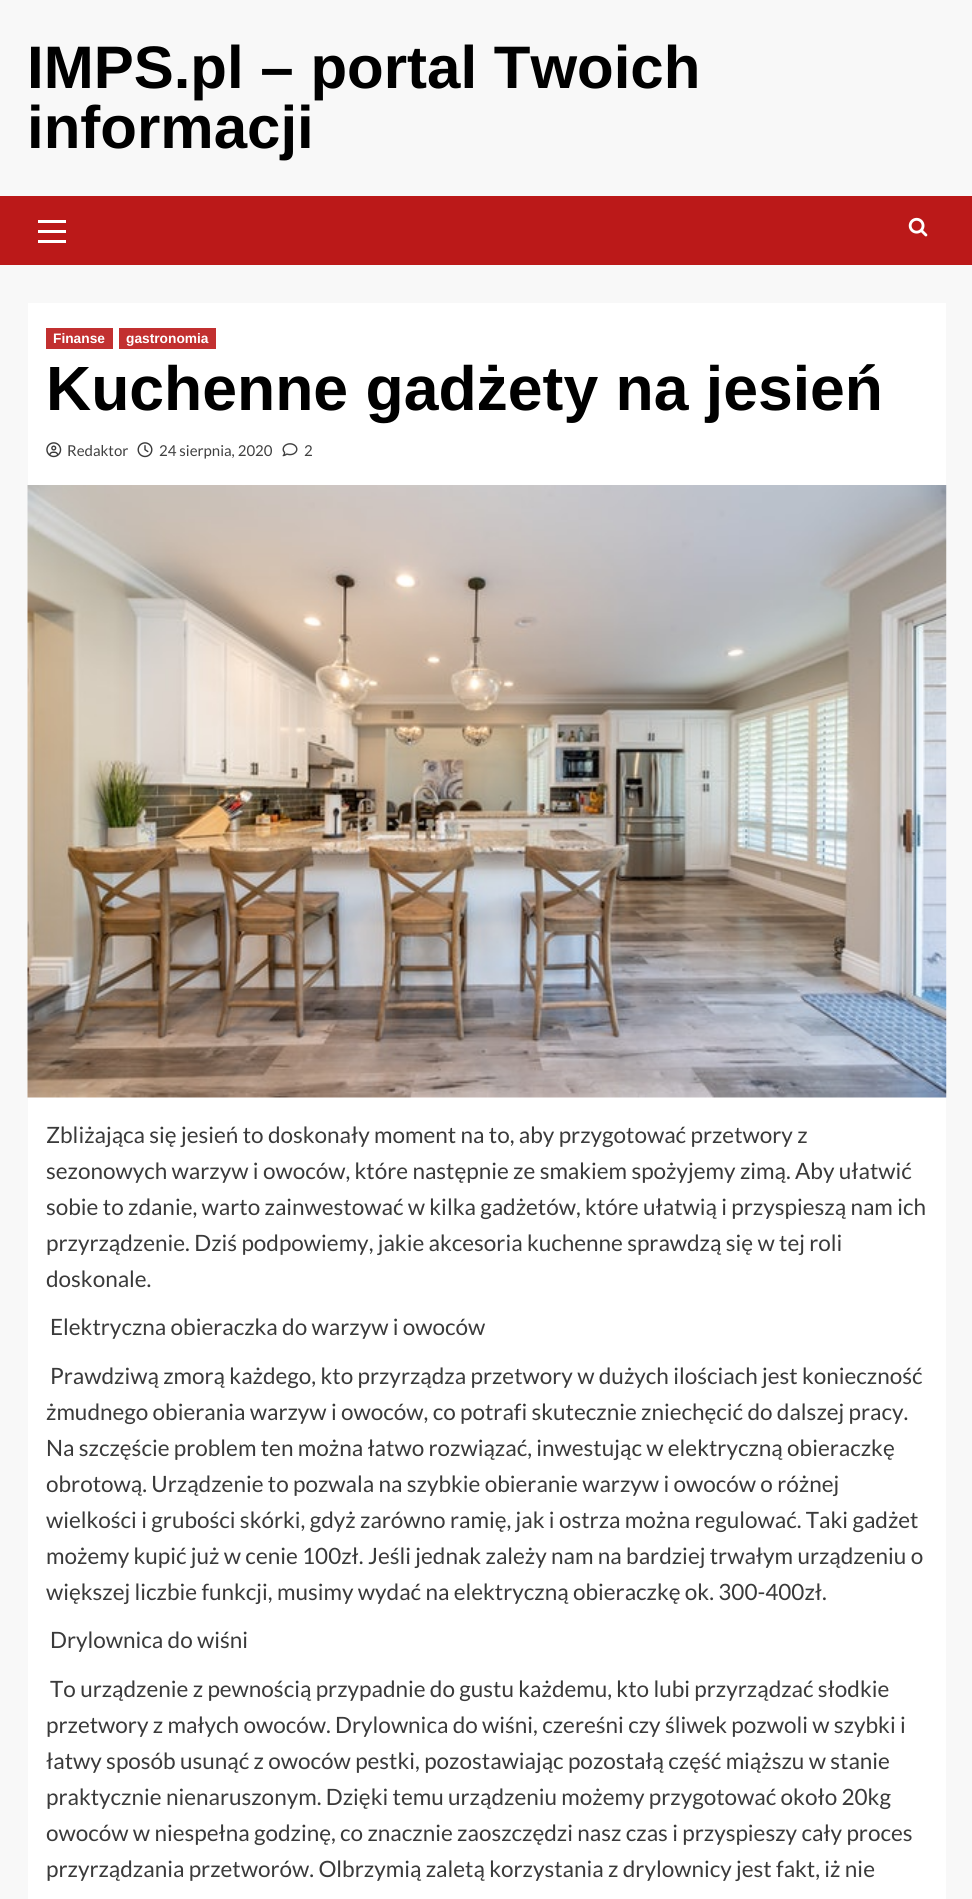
#include <cairo.h>
#include <math.h>
#include <stddef.h>


static void picture(cairo_t *cr, const char *path, double x, double y, double w, double h) {
    cairo_surface_t *image = cairo_image_surface_create_from_png(path);
    cairo_save(cr);
    cairo_set_source_surface(cr, image, x, y);
    cairo_rectangle(cr, x, y, w, h);
    cairo_fill(cr);
    cairo_restore(cr);
    cairo_surface_destroy(image);
}

int main(void) {
    cairo_surface_t *surface = cairo_image_surface_create(CAIRO_FORMAT_RGB24, 972, 1899);
    cairo_t *cr = cairo_create(surface);
    cairo_font_options_t *options = cairo_font_options_create();
    cairo_font_options_set_hint_metrics(options, CAIRO_HINT_METRICS_OFF);
    cairo_font_options_set_hint_style(options, CAIRO_HINT_STYLE_NONE);
    cairo_set_font_options(cr, options);
    cairo_set_miter_limit(cr, 4);
    cairo_set_source_rgb(cr, 0.969, 0.969, 0.969);
    cairo_paint(cr);
    cairo_select_font_face(cr, "Liberation Sans", CAIRO_FONT_SLANT_NORMAL, CAIRO_FONT_WEIGHT_BOLD);
    cairo_set_font_size(cr, 60);
    cairo_set_source_rgb(cr, 0, 0, 0);
    cairo_move_to(cr, 27, 88);
    cairo_show_text(cr, "IMPS.pl – portal Twoich");
    cairo_move_to(cr, 27, 148);
    cairo_show_text(cr, "informacji");
    cairo_set_source_rgb(cr, 0.733, 0.098, 0.098);
    cairo_rectangle(cr, 0, 196, 972, 69);
    cairo_fill(cr);
    cairo_set_source_rgb(cr, 1, 1, 1);
    cairo_rectangle(cr, 38, 230, 28, 3);
    cairo_fill(cr);
    cairo_rectangle(cr, 38, 220, 28, 3);
    cairo_fill(cr);
    cairo_rectangle(cr, 38, 240, 28, 3);
    cairo_fill(cr);
    picture(cr, "img1.png", 908, 217, 20, 20);
    cairo_rectangle(cr, 28, 303, 918, 1596);
    cairo_fill(cr);
    cairo_set_source_rgb(cr, 0.761, 0.188, 0.188);
    cairo_rectangle(cr, 46, 328, 67, 21);
    cairo_fill(cr);
    cairo_set_font_size(cr, 13.75);
    cairo_set_source_rgb(cr, 1, 1, 1);
    cairo_move_to(cr, 53, 343);
    cairo_show_text(cr, "Finanse");
    cairo_set_source_rgb(cr, 0.761, 0.188, 0.188);
    cairo_rectangle(cr, 119, 328, 97, 21);
    cairo_fill(cr);
    cairo_set_source_rgb(cr, 1, 1, 1);
    cairo_move_to(cr, 126, 343);
    cairo_show_text(cr, "gastronomia");
    cairo_set_font_size(cr, 62.5);
    cairo_set_source_rgb(cr, 0, 0, 0);
    cairo_move_to(cr, 46, 410);
    cairo_show_text(cr, "Kuchenne gadżety na jesień");
    picture(cr, "img2.png", 46, 442, 16, 16);
    cairo_select_font_face(cr, "Lato", CAIRO_FONT_SLANT_NORMAL, CAIRO_FONT_WEIGHT_NORMAL);
    cairo_set_font_size(cr, 15);
    cairo_set_source_rgb(cr, 0.251, 0.251, 0.251);
    cairo_move_to(cr, 67, 456);
    cairo_show_text(cr, "Redaktor");
    picture(cr, "img3.png", 137, 442, 16, 16);
    cairo_move_to(cr, 159, 456);
    cairo_show_text(cr, "24 sierpnia, 2020");
    picture(cr, "img4.png", 282, 443, 16, 14);
    cairo_move_to(cr, 304, 456);
    cairo_show_text(cr, "2");
    picture(cr, "img5.png", 27, 485, 920, 613);
    cairo_set_font_size(cr, 22.5);
    cairo_set_source_rgb(cr, 0.227, 0.227, 0.227);
    cairo_move_to(cr, 46, 1143);
    cairo_show_text(cr, "Zbliżająca się jesień to doskonały moment na to, aby przygotować przetwory z");
    cairo_move_to(cr, 46, 1179);
    cairo_show_text(cr, "sezonowych warzyw i owoców, które następnie ze smakiem spożyjemy zimą. Aby ułatwić");
    cairo_move_to(cr, 46, 1215);
    cairo_show_text(cr, "sobie to zdanie, warto zainwestować w kilka gadżetów, które ułatwią i przyspieszą nam ich");
    cairo_move_to(cr, 46, 1251);
    cairo_show_text(cr, "przyrządzenie. Dziś podpowiemy, jakie akcesoria kuchenne sprawdzą się w tej roli");
    cairo_move_to(cr, 46, 1287);
    cairo_show_text(cr, "doskonale.");
    cairo_move_to(cr, 50, 1335);
    cairo_show_text(cr, "Elektryczna obieraczka do warzyw i owoców");
    cairo_move_to(cr, 50, 1384);
    cairo_show_text(cr, "Prawdziwą zmorą każdego, kto przyrządza przetwory w dużych ilościach jest konieczność");
    cairo_move_to(cr, 46, 1420);
    cairo_show_text(cr, "żmudnego obierania warzyw i owoców, co potrafi skutecznie zniechęcić do dalszej pracy.");
    cairo_move_to(cr, 46, 1456);
    cairo_show_text(cr, "Na szczęście problem ten można łatwo rozwiązać, inwestując w elektryczną obieraczkę");
    cairo_move_to(cr, 46, 1492);
    cairo_show_text(cr, "obrotową. Urządzenie to pozwala na szybkie obieranie warzyw i owoców o różnej");
    cairo_move_to(cr, 46, 1528);
    cairo_show_text(cr, "wielkości i grubości skórki, gdyż zarówno ramię, jak i ostrza można regulować. Taki gadżet");
    cairo_move_to(cr, 46, 1564);
    cairo_show_text(cr, "możemy kupić już w cenie 100zł. Jeśli jednak zależy nam na bardziej trwałym urządzeniu o");
    cairo_move_to(cr, 46, 1600);
    cairo_show_text(cr, "większej liczbie funkcji, musimy wydać na elektryczną obieraczkę ok. 300-400zł.");
    cairo_move_to(cr, 50, 1648);
    cairo_show_text(cr, "Drylownica do wiśni");
    cairo_move_to(cr, 50, 1697);
    cairo_show_text(cr, "To urządzenie z pewnością przypadnie do gustu każdemu, kto lubi przyrządzać słodkie");
    cairo_move_to(cr, 46, 1733);
    cairo_show_text(cr, "przetwory z małych owoców. Drylownica do wiśni, czereśni czy śliwek pozwoli w szybki i");
    cairo_move_to(cr, 46, 1769);
    cairo_show_text(cr, "łatwy sposób usunąć z owoców pestki, pozostawiając pozostałą część miąższu w stanie");
    cairo_move_to(cr, 46, 1805);
    cairo_show_text(cr, "praktycznie nienaruszonym. Dzięki temu urządzeniu możemy przygotować około 20kg");
    cairo_move_to(cr, 46, 1841);
    cairo_show_text(cr, "owoców w niespełna godzinę, co znacznie zaoszczędzi nasz czas i przyspieszy cały proces");
    cairo_move_to(cr, 46, 1877);
    cairo_show_text(cr, "przyrządzania przetworów. Olbrzymią zaletą korzystania z drylownicy jest fakt, iż nie");
    cairo_surface_write_to_png(surface, "page.png");
    cairo_font_options_destroy(options);
    cairo_destroy(cr);
    cairo_surface_destroy(surface);
    return 0;
}
